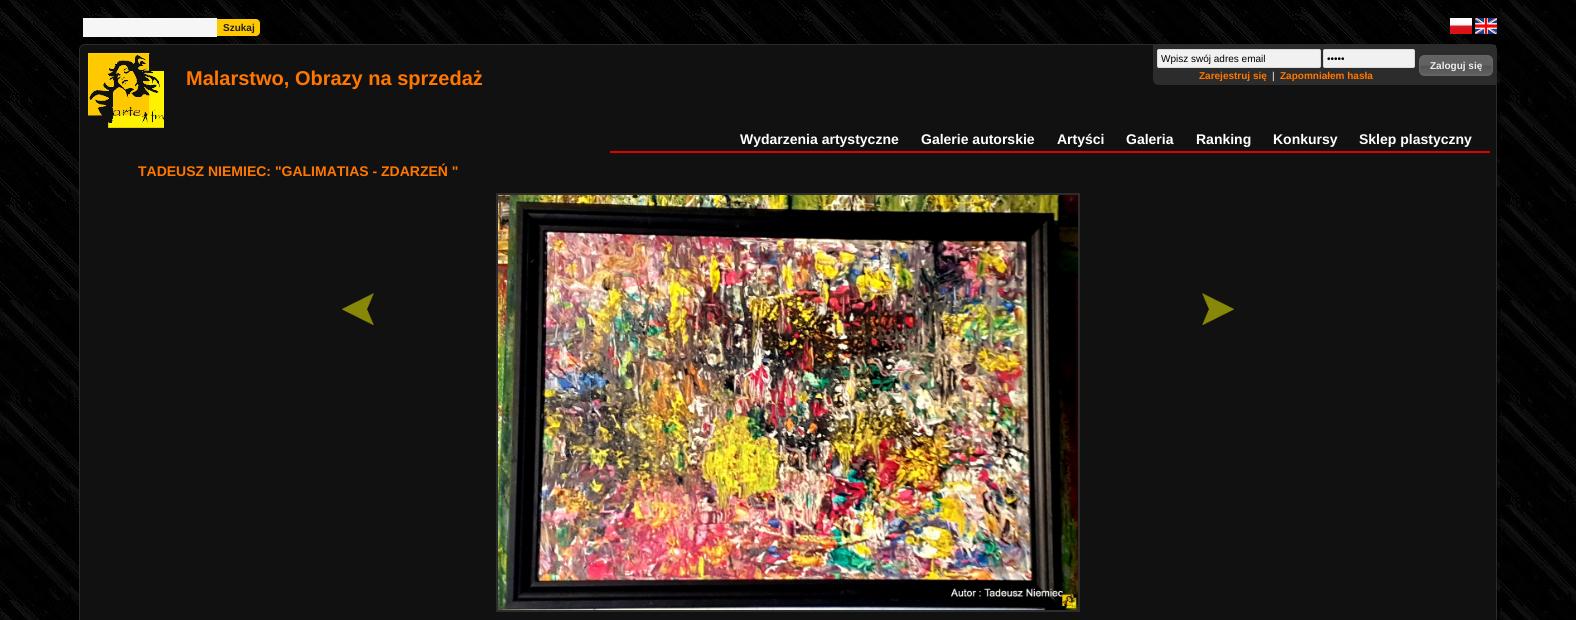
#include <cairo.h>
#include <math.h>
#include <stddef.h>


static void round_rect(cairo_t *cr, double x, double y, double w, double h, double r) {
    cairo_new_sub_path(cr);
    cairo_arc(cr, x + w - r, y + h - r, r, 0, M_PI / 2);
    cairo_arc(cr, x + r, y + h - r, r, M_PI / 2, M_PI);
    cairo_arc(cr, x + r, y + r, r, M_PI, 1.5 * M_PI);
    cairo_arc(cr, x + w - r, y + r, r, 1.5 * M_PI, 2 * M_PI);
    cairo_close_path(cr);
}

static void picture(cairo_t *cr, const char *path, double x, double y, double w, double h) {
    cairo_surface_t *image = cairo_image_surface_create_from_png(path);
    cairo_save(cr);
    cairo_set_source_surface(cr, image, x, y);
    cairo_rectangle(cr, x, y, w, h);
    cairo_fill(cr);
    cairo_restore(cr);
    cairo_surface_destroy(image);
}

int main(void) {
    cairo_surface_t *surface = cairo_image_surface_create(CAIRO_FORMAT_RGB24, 1576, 620);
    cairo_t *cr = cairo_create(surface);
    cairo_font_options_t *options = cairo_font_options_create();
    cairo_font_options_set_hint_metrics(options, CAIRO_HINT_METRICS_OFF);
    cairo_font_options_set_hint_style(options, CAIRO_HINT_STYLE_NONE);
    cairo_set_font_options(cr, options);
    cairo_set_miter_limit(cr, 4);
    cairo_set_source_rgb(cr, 1, 1, 1);
    cairo_paint(cr);
    picture(cr, "img1.png", 0, 0, 1576, 620);
    cairo_set_source_rgb(cr, 0.961, 0.961, 0.961);
    cairo_rectangle(cr, 83, 18, 134, 19);
    cairo_fill(cr);
    cairo_set_source_rgb(cr, 0.996, 0.788, 0);
    cairo_new_path(cr);
    cairo_move_to(cr, 217, 19);
    cairo_line_to(cr, 256, 19);
    cairo_curve_to(cr, 258, 19, 260, 21, 260, 23);
    cairo_line_to(cr, 260, 32);
    cairo_curve_to(cr, 260, 34, 258, 36, 256, 36);
    cairo_line_to(cr, 217, 36);
    cairo_close_path(cr);
    cairo_fill(cr);
    cairo_select_font_face(cr, "Liberation Sans", CAIRO_FONT_SLANT_NORMAL, CAIRO_FONT_WEIGHT_BOLD);
    cairo_set_font_size(cr, 10);
    cairo_set_source_rgb(cr, 0.122, 0.122, 0.122);
    cairo_move_to(cr, 223, 31);
    cairo_show_text(cr, "Szukaj");
    picture(cr, "img2.png", 1450, 18, 22, 16);
    picture(cr, "img3.png", 1475, 18, 22, 16);
    cairo_set_source_rgb(cr, 0.067, 0.067, 0.067);
    round_rect(cr, 79.5, 44.5, 1417, 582, 5.5);
    cairo_fill_preserve(cr);
    cairo_set_source_rgb(cr, 0.173, 0.173, 0.173);
    cairo_set_line_width(cr, 1);
    cairo_stroke(cr);
    picture(cr, "img4.png", 88, 53, 76, 75);
    cairo_set_font_size(cr, 20);
    cairo_set_source_rgb(cr, 1, 0.467, 0);
    cairo_move_to(cr, 186, 85);
    cairo_show_text(cr, "Malarstwo, Obrazy na sprzedaż");
    cairo_set_source_rgb(cr, 0.173, 0.173, 0.173);
    cairo_new_path(cr);
    cairo_move_to(cr, 1153, 45);
    cairo_line_to(cr, 1496, 45);
    cairo_line_to(cr, 1496, 85);
    cairo_line_to(cr, 1159, 85);
    cairo_curve_to(cr, 1155.5, 85, 1153, 82.5, 1153, 79);
    cairo_close_path(cr);
    cairo_fill(cr);
    cairo_set_source_rgb(cr, 0.945, 0.945, 0.945);
    round_rect(cr, 1157.5, 49.5, 163, 18, 1.5);
    cairo_fill_preserve(cr);
    cairo_set_source_rgb(cr, 0.863, 0.863, 0.863);
    cairo_stroke(cr);
    cairo_select_font_face(cr, "Liberation Sans", CAIRO_FONT_SLANT_NORMAL, CAIRO_FONT_WEIGHT_NORMAL);
    cairo_set_font_size(cr, 10);
    cairo_set_source_rgb(cr, 0, 0, 0);
    cairo_move_to(cr, 1161, 62);
    cairo_show_text(cr, "Wpisz swój adres email");
    cairo_set_source_rgb(cr, 0.945, 0.945, 0.945);
    round_rect(cr, 1323.5, 49.5, 91, 18, 1.5);
    cairo_fill_preserve(cr);
    cairo_set_source_rgb(cr, 0.863, 0.863, 0.863);
    cairo_stroke(cr);
    cairo_set_source_rgb(cr, 0, 0, 0);
    cairo_move_to(cr, 1327, 62);
    cairo_show_text(cr, "•••••");
    cairo_select_font_face(cr, "Liberation Sans", CAIRO_FONT_SLANT_NORMAL, CAIRO_FONT_WEIGHT_BOLD);
    cairo_set_source_rgb(cr, 1, 0.467, 0);
    cairo_move_to(cr, 1199, 79);
    cairo_show_text(cr, "Zarejestruj się");
    cairo_select_font_face(cr, "Liberation Sans", CAIRO_FONT_SLANT_NORMAL, CAIRO_FONT_WEIGHT_NORMAL);
    cairo_set_source_rgb(cr, 1, 1, 1);
    cairo_move_to(cr, 1272, 79);
    cairo_show_text(cr, "|");
    cairo_select_font_face(cr, "Liberation Sans", CAIRO_FONT_SLANT_NORMAL, CAIRO_FONT_WEIGHT_BOLD);
    cairo_set_source_rgb(cr, 1, 0.467, 0);
    cairo_move_to(cr, 1280, 79);
    cairo_show_text(cr, "Zapomniałem hasła");
    picture(cr, "img5.png", 1419, 55, 74, 21);
    round_rect(cr, 1419.5, 55.5, 73, 20, 5.5);
    cairo_set_source_rgb(cr, 0.4, 0.4, 0.4);
    cairo_stroke(cr);
    cairo_set_source_rgb(cr, 0.933, 0.933, 0.933);
    cairo_move_to(cr, 1430, 69);
    cairo_show_text(cr, "Zaloguj się");
    cairo_set_source_rgb(cr, 0.875, 0, 0);
    cairo_rectangle(cr, 610, 151, 880, 2);
    cairo_fill(cr);
    cairo_set_font_size(cr, 14);
    cairo_set_source_rgb(cr, 1, 1, 1);
    cairo_move_to(cr, 740, 144);
    cairo_show_text(cr, "Wydarzenia artystyczne");
    cairo_move_to(cr, 921, 144);
    cairo_show_text(cr, "Galerie autorskie");
    cairo_move_to(cr, 1057, 144);
    cairo_show_text(cr, "Artyści");
    cairo_move_to(cr, 1126, 144);
    cairo_show_text(cr, "Galeria");
    cairo_move_to(cr, 1196, 144);
    cairo_show_text(cr, "Ranking");
    cairo_move_to(cr, 1273, 144);
    cairo_show_text(cr, "Konkursy");
    cairo_move_to(cr, 1359, 144);
    cairo_show_text(cr, "Sklep plastyczny");
    cairo_set_source_rgb(cr, 1, 0.467, 0);
    cairo_move_to(cr, 138, 176);
    cairo_show_text(cr, "TADEUSZ NIEMIEC: \"GALIMATIAS - ZDARZEŃ \"");
    picture(cr, "img6.png", 342, 293, 32, 32);
    cairo_set_source_rgb(cr, 0.173, 0.173, 0.173);
    cairo_rectangle(cr, 496, 193, 584, 419);
    cairo_fill(cr);
    picture(cr, "img7.png", 498, 195, 580, 415);
    picture(cr, "img8.png", 1202, 293, 32, 32);
    cairo_surface_write_to_png(surface, "page.png");
    cairo_font_options_destroy(options);
    cairo_destroy(cr);
    cairo_surface_destroy(surface);
    return 0;
}
